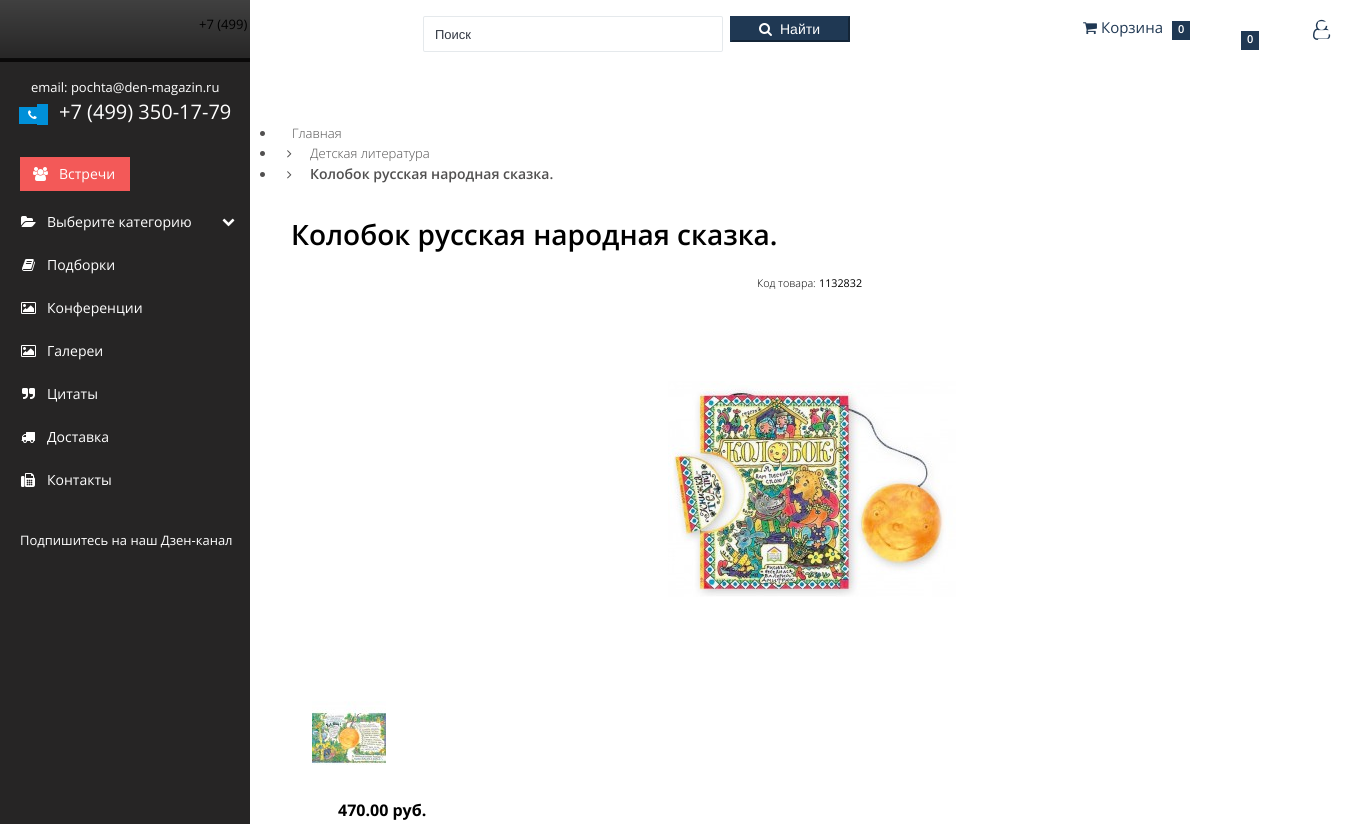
#include <cairo.h>
#include <math.h>
#include <stddef.h>


static void round_rect(cairo_t *cr, double x, double y, double w, double h, double r) {
    cairo_new_sub_path(cr);
    cairo_arc(cr, x + w - r, y + h - r, r, 0, M_PI / 2);
    cairo_arc(cr, x + r, y + h - r, r, M_PI / 2, M_PI);
    cairo_arc(cr, x + r, y + r, r, M_PI, 1.5 * M_PI);
    cairo_arc(cr, x + w - r, y + r, r, 1.5 * M_PI, 2 * M_PI);
    cairo_close_path(cr);
}

static void picture(cairo_t *cr, const char *path, double x, double y, double w, double h) {
    cairo_surface_t *image = cairo_image_surface_create_from_png(path);
    cairo_save(cr);
    cairo_set_source_surface(cr, image, x, y);
    cairo_rectangle(cr, x, y, w, h);
    cairo_fill(cr);
    cairo_restore(cr);
    cairo_surface_destroy(image);
}

int main(void) {
    cairo_surface_t *surface = cairo_image_surface_create(CAIRO_FORMAT_RGB24, 1369, 824);
    cairo_t *cr = cairo_create(surface);
    cairo_font_options_t *options = cairo_font_options_create();
    cairo_font_options_set_hint_metrics(options, CAIRO_HINT_METRICS_OFF);
    cairo_font_options_set_hint_style(options, CAIRO_HINT_STYLE_NONE);
    cairo_set_font_options(cr, options);
    cairo_set_miter_limit(cr, 4);
    cairo_pattern_t *gradient;
    cairo_set_source_rgb(cr, 0.596, 0.584, 0.584);
    cairo_paint(cr);
    cairo_set_source_rgb(cr, 0.149, 0.145, 0.145);
    cairo_rectangle(cr, 0, 58, 250, 766);
    cairo_fill(cr);
    gradient = cairo_pattern_create_linear(685, 0, 685, 60);
    cairo_pattern_add_color_stop_rgba(gradient, 0, 1, 1, 1, 1);
    cairo_pattern_add_color_stop_rgba(gradient, 1, 1, 1, 1, 0);
    cairo_set_source(cr, gradient);
    cairo_pattern_destroy(gradient);
    cairo_rectangle(cr, 0, 0, 250, 59);
    cairo_fill(cr);
    cairo_set_source_rgba(cr, 0, 0, 0, 0.75);
    cairo_rectangle(cr, 0, 0, 250, 62);
    cairo_fill(cr);
    cairo_select_font_face(cr, "Open Sans", CAIRO_FONT_SLANT_NORMAL, CAIRO_FONT_WEIGHT_NORMAL);
    cairo_set_font_size(cr, 13);
    cairo_set_source_rgb(cr, 0, 0, 0);
    cairo_move_to(cr, 199, 29);
    cairo_show_text(cr, "+7 (499)");
    cairo_set_source_rgb(cr, 1, 1, 1);
    cairo_rectangle(cr, 250, 0, 1119, 824);
    cairo_fill(cr);
    round_rect(cr, 423.5, 16.5, 299, 35, 1.5);
    cairo_set_source_rgb(cr, 0.898, 0.914, 0.925);
    cairo_set_line_width(cr, 1);
    cairo_stroke(cr);
    cairo_select_font_face(cr, "Liberation Sans", CAIRO_FONT_SLANT_NORMAL, CAIRO_FONT_WEIGHT_NORMAL);
    cairo_set_source_rgb(cr, 0.2, 0.22, 0.263);
    cairo_move_to(cr, 435, 39);
    cairo_show_text(cr, "Поиск");
    cairo_set_source_rgb(cr, 0.122, 0.22, 0.325);
    cairo_rectangle(cr, 730, 16, 120, 26);
    cairo_fill(cr);
    cairo_set_source_rgb(cr, 0.082, 0.145, 0.216);
    cairo_new_path(cr);
    cairo_move_to(cr, 850, 16);
    cairo_line_to(cr, 850, 42);
    cairo_line_to(cr, 848, 40);
    cairo_line_to(cr, 848, 18);
    cairo_close_path(cr);
    cairo_fill(cr);
    cairo_new_path(cr);
    cairo_move_to(cr, 850, 42);
    cairo_line_to(cr, 730, 42);
    cairo_line_to(cr, 732, 40);
    cairo_line_to(cr, 848, 40);
    cairo_close_path(cr);
    cairo_fill(cr);
    cairo_set_source_rgb(cr, 0.122, 0.22, 0.325);
    cairo_new_path(cr);
    cairo_move_to(cr, 730, 42);
    cairo_line_to(cr, 730, 16);
    cairo_line_to(cr, 732, 18);
    cairo_line_to(cr, 732, 40);
    cairo_close_path(cr);
    cairo_fill(cr);
    picture(cr, "img1.png", 759, 23, 13, 13);
    cairo_set_font_size(cr, 14);
    cairo_set_source_rgb(cr, 1, 1, 1);
    cairo_move_to(cr, 780, 34);
    cairo_show_text(cr, "Найти");
    picture(cr, "img2.png", 1083, 22, 14, 13);
    cairo_select_font_face(cr, "Open Sans", CAIRO_FONT_SLANT_NORMAL, CAIRO_FONT_WEIGHT_NORMAL);
    cairo_set_font_size(cr, 15);
    cairo_set_source_rgb(cr, 0.122, 0.22, 0.325);
    cairo_move_to(cr, 1101, 33);
    cairo_show_text(cr, "Корзина");
    cairo_rectangle(cr, 1172, 21, 18, 19);
    cairo_fill(cr);
    cairo_select_font_face(cr, "Open Sans SemiBold", CAIRO_FONT_SLANT_NORMAL, CAIRO_FONT_WEIGHT_NORMAL);
    cairo_set_font_size(cr, 11);
    cairo_set_source_rgb(cr, 1, 1, 1);
    cairo_move_to(cr, 1178, 33);
    cairo_show_text(cr, "0");
    picture(cr, "img3.png", 1313, 19, 18, 21);
    cairo_set_source_rgb(cr, 0.122, 0.22, 0.325);
    cairo_rectangle(cr, 1241, 31, 18, 19);
    cairo_fill(cr);
    cairo_set_source_rgb(cr, 1, 1, 1);
    cairo_move_to(cr, 1247, 43);
    cairo_show_text(cr, "0");
    picture(cr, "img4.png", 1318, 21, 13, 19);
    cairo_select_font_face(cr, "Open Sans", CAIRO_FONT_SLANT_NORMAL, CAIRO_FONT_WEIGHT_NORMAL);
    cairo_set_font_size(cr, 13);
    cairo_move_to(cr, 31, 92);
    cairo_show_text(cr, "email: pochta@den-magazin.ru");
    cairo_set_source_rgb(cr, 0, 0.565, 0.851);
    cairo_rectangle(cr, 19, 107, 18, 17);
    cairo_fill(cr);
    cairo_rectangle(cr, 37, 104, 11, 21);
    cairo_fill(cr);
    picture(cr, "img5.png", 28, 110, 9, 9);
    cairo_set_font_size(cr, 20);
    cairo_set_source_rgb(cr, 1, 1, 1);
    cairo_move_to(cr, 59, 119);
    cairo_show_text(cr, "+7 (499) 350-17-79");
    cairo_set_source_rgb(cr, 0.953, 0.349, 0.345);
    cairo_rectangle(cr, 20, 157, 110, 34);
    cairo_fill(cr);
    picture(cr, "img6.png", 33, 167, 15, 14);
    cairo_set_font_size(cr, 14);
    cairo_set_source_rgb(cr, 1, 1, 1);
    cairo_move_to(cr, 59, 179);
    cairo_show_text(cr, "Встречи");
    picture(cr, "img7.png", 21, 216, 15, 11);
    cairo_move_to(cr, 47, 227);
    cairo_show_text(cr, "Выберите категорию");
    picture(cr, "img8.png", 222, 218, 13, 9);
    picture(cr, "img9.png", 22, 259, 13, 12);
    cairo_move_to(cr, 47, 270);
    cairo_show_text(cr, "Подборки");
    picture(cr, "img10.png", 21, 302, 15, 12);
    cairo_move_to(cr, 47, 313);
    cairo_show_text(cr, "Конференции");
    picture(cr, "img10.png", 21, 345, 15, 12);
    cairo_move_to(cr, 47, 356);
    cairo_show_text(cr, "Галереи");
    picture(cr, "img11.png", 22, 388, 13, 11);
    cairo_move_to(cr, 47, 399);
    cairo_show_text(cr, "Цитаты");
    picture(cr, "img12.png", 21, 432, 14, 11);
    cairo_move_to(cr, 47, 442);
    cairo_show_text(cr, "Доставка");
    picture(cr, "img13.png", 21, 473, 14, 14);
    cairo_move_to(cr, 47, 485);
    cairo_show_text(cr, "Контакты");
    cairo_set_font_size(cr, 13);
    cairo_move_to(cr, 20, 545);
    cairo_show_text(cr, "Подпишитесь на наш Дзен-канал");
    cairo_set_source_rgb(cr, 0.318, 0.314, 0.314);
    cairo_new_path(cr);
    cairo_arc(cr, 262.5, 133.5, 2.5, 0, 2 * M_PI);
    cairo_fill(cr);
    cairo_select_font_face(cr, "Open Sans Light", CAIRO_FONT_SLANT_NORMAL, CAIRO_FONT_WEIGHT_NORMAL);
    cairo_move_to(cr, 292, 138);
    cairo_show_text(cr, "Главная");
    cairo_new_path(cr);
    cairo_arc(cr, 262.5, 153.5, 2.5, 0, 2 * M_PI);
    cairo_fill(cr);
    picture(cr, "img14.png", 287, 150, 5, 8);
    cairo_move_to(cr, 310, 158);
    cairo_show_text(cr, "Детская литература");
    cairo_new_path(cr);
    cairo_arc(cr, 262.5, 174.5, 2.5, 0, 2 * M_PI);
    cairo_fill(cr);
    picture(cr, "img14.png", 287, 171, 5, 8);
    cairo_select_font_face(cr, "Open Sans SemiBold", CAIRO_FONT_SLANT_NORMAL, CAIRO_FONT_WEIGHT_NORMAL);
    cairo_set_font_size(cr, 14);
    cairo_move_to(cr, 310, 179);
    cairo_show_text(cr, "Колобок русская народная сказка.");
    cairo_set_font_size(cr, 28);
    cairo_set_source_rgb(cr, 0, 0, 0);
    cairo_move_to(cr, 291, 245);
    cairo_show_text(cr, "Колобок русская народная сказка.");
    cairo_select_font_face(cr, "Open Sans Light", CAIRO_FONT_SLANT_NORMAL, CAIRO_FONT_WEIGHT_NORMAL);
    cairo_set_font_size(cr, 10.75);
    cairo_move_to(cr, 757, 287);
    cairo_show_text(cr, "Код товара:");
    cairo_select_font_face(cr, "Open Sans", CAIRO_FONT_SLANT_NORMAL, CAIRO_FONT_WEIGHT_NORMAL);
    cairo_move_to(cr, 819, 287);
    cairo_show_text(cr, "1132832");
    picture(cr, "img15.png", 668, 381, 288, 216);
    picture(cr, "img16.png", 312, 701, 74, 64);
    cairo_select_font_face(cr, "Open Sans", CAIRO_FONT_SLANT_NORMAL, CAIRO_FONT_WEIGHT_BOLD);
    cairo_set_font_size(cr, 16);
    cairo_move_to(cr, 338, 816);
    cairo_show_text(cr, "470.00 руб.");
    cairo_surface_write_to_png(surface, "page.png");
    cairo_font_options_destroy(options);
    cairo_destroy(cr);
    cairo_surface_destroy(surface);
    return 0;
}
